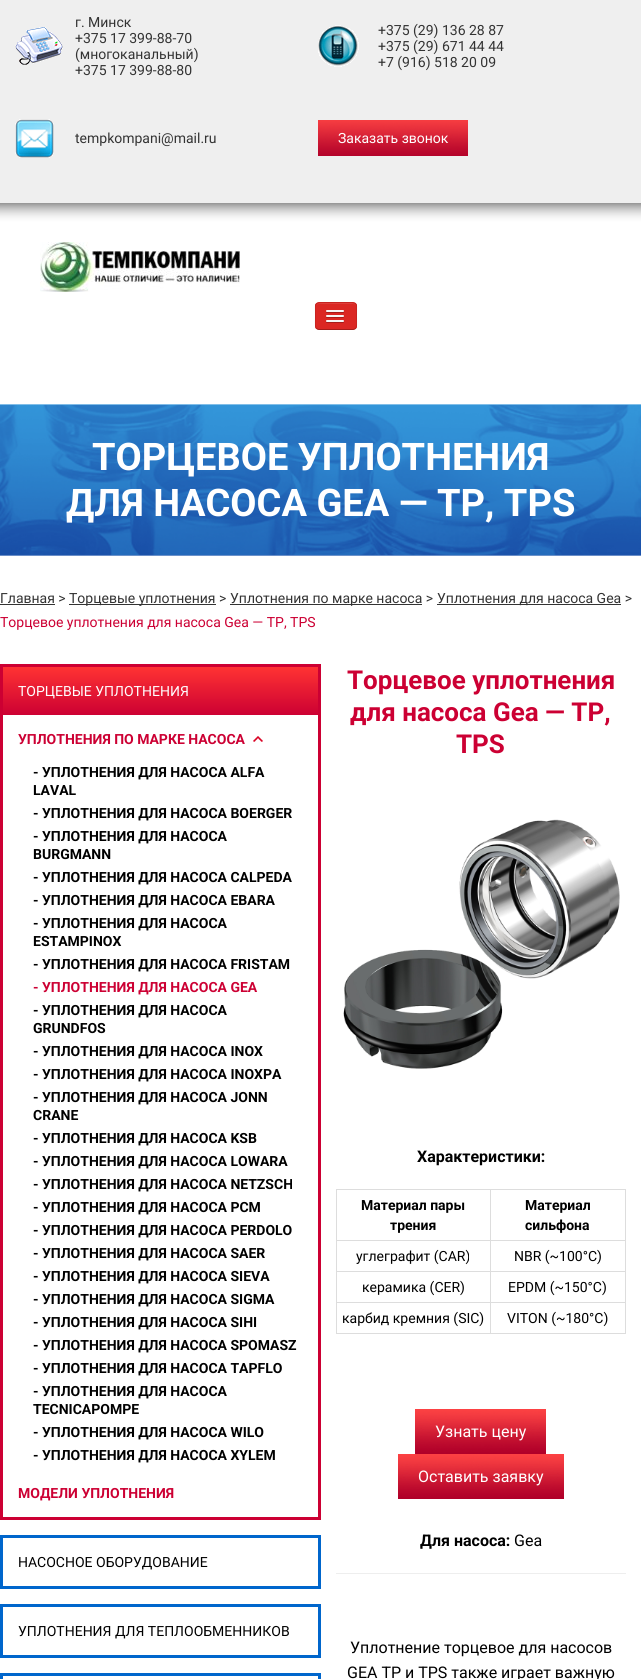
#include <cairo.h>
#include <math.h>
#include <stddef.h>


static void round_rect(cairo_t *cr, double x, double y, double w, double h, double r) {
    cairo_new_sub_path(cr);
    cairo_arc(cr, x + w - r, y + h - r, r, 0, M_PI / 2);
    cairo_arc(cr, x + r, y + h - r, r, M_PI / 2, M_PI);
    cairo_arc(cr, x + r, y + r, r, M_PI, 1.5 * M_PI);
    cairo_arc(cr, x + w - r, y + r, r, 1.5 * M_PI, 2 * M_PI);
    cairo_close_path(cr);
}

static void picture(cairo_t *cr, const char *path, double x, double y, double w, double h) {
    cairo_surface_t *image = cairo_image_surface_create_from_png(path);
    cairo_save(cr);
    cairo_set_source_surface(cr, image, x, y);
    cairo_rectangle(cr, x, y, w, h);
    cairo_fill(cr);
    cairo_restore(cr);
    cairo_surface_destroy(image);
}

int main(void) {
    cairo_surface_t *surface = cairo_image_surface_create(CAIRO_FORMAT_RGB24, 641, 1679);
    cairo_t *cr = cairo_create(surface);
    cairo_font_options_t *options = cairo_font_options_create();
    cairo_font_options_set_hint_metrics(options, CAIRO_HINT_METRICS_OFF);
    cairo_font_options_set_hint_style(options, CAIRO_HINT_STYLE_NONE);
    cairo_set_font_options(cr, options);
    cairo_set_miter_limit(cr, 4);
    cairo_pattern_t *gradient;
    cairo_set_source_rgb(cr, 1, 1, 1);
    cairo_paint(cr);
    cairo_set_source_rgb(cr, 0.937, 0.937, 0.937);
    cairo_rectangle(cr, 0, 0, 641, 203);
    cairo_fill(cr);
    picture(cr, "img1.png", 0, 203, 641, 19);
    picture(cr, "img2.png", 15, 27, 48, 38);
    cairo_select_font_face(cr, "Roboto", CAIRO_FONT_SLANT_NORMAL, CAIRO_FONT_WEIGHT_NORMAL);
    cairo_set_font_size(cr, 14);
    cairo_set_source_rgb(cr, 0.2, 0.2, 0.2);
    cairo_move_to(cr, 75, 27);
    cairo_show_text(cr, "г. Минск");
    cairo_move_to(cr, 75, 43);
    cairo_show_text(cr, "+375 17 399-88-70");
    cairo_move_to(cr, 75, 59);
    cairo_show_text(cr, "(многоканальный)");
    cairo_move_to(cr, 75, 75);
    cairo_show_text(cr, "+375 17 399-88-80");
    picture(cr, "img3.png", 318, 25, 41, 42);
    cairo_move_to(cr, 378, 35);
    cairo_show_text(cr, "+375 (29) 136 28 87");
    cairo_move_to(cr, 378, 51);
    cairo_show_text(cr, "+375 (29) 671 44 44");
    cairo_move_to(cr, 378, 67);
    cairo_show_text(cr, "+7 (916) 518 20 09");
    picture(cr, "img4.png", 15, 119, 39, 39);
    cairo_move_to(cr, 75, 143);
    cairo_show_text(cr, "tempkompani@mail.ru");
    picture(cr, "img5.png", 318, 120, 150, 36);
    cairo_set_source_rgb(cr, 1, 1, 1);
    cairo_move_to(cr, 338, 143);
    cairo_show_text(cr, "Заказать звонок");
    picture(cr, "img6.png", 40, 242, 200, 50);
    cairo_set_source_rgb(cr, 0.859, 0.153, 0.137);
    round_rect(cr, 315, 302, 42, 28, 4);
    cairo_fill(cr);
    cairo_save(cr);
    round_rect(cr, 315, 302, 42, 28, 4);
    cairo_clip(cr);
    cairo_rectangle(cr, 315, 303, 42, 26);
    cairo_fill(cr);
    cairo_restore(cr);
    cairo_set_source_rgb(cr, 0.875, 0.239, 0.224);
    cairo_new_path(cr);
    cairo_move_to(cr, 319, 304);
    cairo_line_to(cr, 353, 304);
    cairo_curve_to(cr, 355, 304, 356, 305, 356, 307);
    cairo_curve_to(cr, 356, 302, 351, 303, 347, 303);
    cairo_line_to(cr, 325, 303);
    cairo_curve_to(cr, 321, 303, 316, 302, 316, 307);
    cairo_curve_to(cr, 316, 305, 317, 304, 319, 304);
    cairo_close_path(cr);
    cairo_fill(cr);
    cairo_new_path(cr);
    cairo_move_to(cr, 355.5, 328.5);
    cairo_curve_to(cr, 355, 329, 354, 329.5, 353, 329.5);
    cairo_line_to(cr, 319, 329.5);
    cairo_curve_to(cr, 318, 329.5, 317, 329, 316.5, 328.5);
    cairo_set_source_rgba(cr, 0, 0, 0, 0.25);
    cairo_set_line_width(cr, 1);
    cairo_stroke(cr);
    cairo_new_path(cr);
    cairo_move_to(cr, 316.5, 328.5);
    cairo_curve_to(cr, 314.5, 326, 315.5, 318.5, 315.5, 316);
    cairo_curve_to(cr, 315.5, 304, 313, 302.5, 324.5, 302.5);
    cairo_line_to(cr, 347.5, 302.5);
    cairo_curve_to(cr, 359, 302.5, 356.5, 304, 356.5, 316);
    cairo_curve_to(cr, 356.5, 318.5, 357.5, 326, 355.5, 328.5);
    cairo_set_source_rgba(cr, 0, 0, 0, 0.1);
    cairo_stroke(cr);
    cairo_set_source_rgb(cr, 0.643, 0.114, 0.102);
    cairo_new_path(cr);
    cairo_move_to(cr, 326, 311.5);
    cairo_curve_to(cr, 325, 313.5, 329.5, 313, 329.5, 313);
    cairo_line_to(cr, 340.5, 313);
    cairo_curve_to(cr, 340.5, 313, 345, 313.5, 344, 311.5);
    cairo_curve_to(cr, 343, 312.5, 336.5, 312, 335, 312);
    cairo_curve_to(cr, 333.5, 312, 327, 312.5, 326, 311.5);
    cairo_close_path(cr);
    cairo_fill(cr);
    cairo_set_source_rgb(cr, 0.961, 0.961, 0.961);
    round_rect(cr, 326, 310, 18, 2, 1);
    cairo_fill(cr);
    cairo_set_source_rgb(cr, 0.643, 0.114, 0.102);
    cairo_new_path(cr);
    cairo_move_to(cr, 326, 316.5);
    cairo_curve_to(cr, 325, 318.5, 329.5, 318, 329.5, 318);
    cairo_line_to(cr, 340.5, 318);
    cairo_curve_to(cr, 340.5, 318, 345, 318.5, 344, 316.5);
    cairo_curve_to(cr, 343, 317.5, 336.5, 317, 335, 317);
    cairo_curve_to(cr, 333.5, 317, 327, 317.5, 326, 316.5);
    cairo_close_path(cr);
    cairo_fill(cr);
    cairo_set_source_rgb(cr, 0.961, 0.961, 0.961);
    round_rect(cr, 326, 315, 18, 2, 1);
    cairo_fill(cr);
    cairo_set_source_rgb(cr, 0.643, 0.114, 0.102);
    cairo_new_path(cr);
    cairo_move_to(cr, 326, 321.5);
    cairo_curve_to(cr, 325, 323.5, 329.5, 323, 329.5, 323);
    cairo_line_to(cr, 340.5, 323);
    cairo_curve_to(cr, 340.5, 323, 345, 323.5, 344, 321.5);
    cairo_curve_to(cr, 343, 322.5, 336.5, 322, 335, 322);
    cairo_curve_to(cr, 333.5, 322, 327, 322.5, 326, 321.5);
    cairo_close_path(cr);
    cairo_fill(cr);
    cairo_set_source_rgb(cr, 0.961, 0.961, 0.961);
    round_rect(cr, 326, 320, 18, 2, 1);
    cairo_fill(cr);
    picture(cr, "img7.png", 0, 404, 641, 152);
    cairo_select_font_face(cr, "Roboto", CAIRO_FONT_SLANT_NORMAL, CAIRO_FONT_WEIGHT_BOLD);
    cairo_set_font_size(cr, 38);
    cairo_set_source_rgb(cr, 1, 1, 1);
    cairo_move_to(cr, 92, 470);
    cairo_show_text(cr, "ТОРЦЕВОЕ УПЛОТНЕНИЯ");
    cairo_move_to(cr, 66, 516);
    cairo_show_text(cr, "ДЛЯ НАСОСА GEA — TP, TPS");
    cairo_select_font_face(cr, "Roboto", CAIRO_FONT_SLANT_NORMAL, CAIRO_FONT_WEIGHT_NORMAL);
    cairo_set_font_size(cr, 14);
    cairo_set_source_rgb(cr, 0.2, 0.2, 0.2);
    cairo_move_to(cr, 0, 603);
    cairo_show_text(cr, "Главная >");
    cairo_rectangle(cr, 0, 604, 55, 1);
    cairo_fill(cr);
    cairo_rectangle(cr, 69, 604, 147, 1);
    cairo_fill(cr);
    cairo_move_to(cr, 69, 603);
    cairo_show_text(cr, "Торцевые уплотнения >");
    cairo_rectangle(cr, 230, 604, 192, 1);
    cairo_fill(cr);
    cairo_move_to(cr, 230, 603);
    cairo_show_text(cr, "Уплотнения по марке насоса >");
    cairo_rectangle(cr, 437, 604, 184, 1);
    cairo_fill(cr);
    cairo_move_to(cr, 437, 603);
    cairo_show_text(cr, "Уплотнения для насоса Gea >");
    cairo_set_source_rgb(cr, 0.8, 0, 0.2);
    cairo_move_to(cr, 0, 627);
    cairo_show_text(cr, "Торцевое уплотнения для насоса Gea — TP, TPS");
    cairo_rectangle(cr, 1.5, 665.5, 318, 853);
    cairo_set_line_width(cr, 3);
    cairo_stroke(cr);
    gradient = cairo_pattern_create_linear(161, 715, 161, 667);
    cairo_pattern_add_color_stop_rgba(gradient, 0, 0.8, 0, 0.2, 1);
    cairo_pattern_add_color_stop_rgba(gradient, 1, 1, 0.2, 0.2, 1);
    cairo_set_source(cr, gradient);
    cairo_pattern_destroy(gradient);
    cairo_rectangle(cr, 3, 667, 315, 48);
    cairo_fill(cr);
    cairo_set_source_rgb(cr, 1, 1, 1);
    cairo_move_to(cr, 18, 696);
    cairo_show_text(cr, "ТОРЦЕВЫЕ УПЛОТНЕНИЯ");
    cairo_select_font_face(cr, "Roboto", CAIRO_FONT_SLANT_NORMAL, CAIRO_FONT_WEIGHT_BOLD);
    cairo_set_source_rgb(cr, 0.8, 0, 0.2);
    cairo_move_to(cr, 18, 744);
    cairo_show_text(cr, "УПЛОТНЕНИЯ ПО МАРКЕ НАСОСА");
    picture(cr, "img8.png", 253, 736, 10, 6);
    cairo_set_source_rgb(cr, 0, 0, 0);
    cairo_move_to(cr, 33, 777);
    cairo_show_text(cr, "- УПЛОТНЕНИЯ ДЛЯ НАСОСА ALFA");
    cairo_move_to(cr, 33, 795);
    cairo_show_text(cr, "LAVAL");
    cairo_move_to(cr, 33, 818);
    cairo_show_text(cr, "- УПЛОТНЕНИЯ ДЛЯ НАСОСА BOERGER");
    cairo_move_to(cr, 33, 841);
    cairo_show_text(cr, "- УПЛОТНЕНИЯ ДЛЯ НАСОСА");
    cairo_move_to(cr, 33, 859);
    cairo_show_text(cr, "BURGMANN");
    cairo_move_to(cr, 33, 882);
    cairo_show_text(cr, "- УПЛОТНЕНИЯ ДЛЯ НАСОСА CALPEDA");
    cairo_move_to(cr, 33, 905);
    cairo_show_text(cr, "- УПЛОТНЕНИЯ ДЛЯ НАСОСА EBARA");
    cairo_move_to(cr, 33, 928);
    cairo_show_text(cr, "- УПЛОТНЕНИЯ ДЛЯ НАСОСА");
    cairo_move_to(cr, 33, 946);
    cairo_show_text(cr, "ESTAMPINOX");
    cairo_move_to(cr, 33, 969);
    cairo_show_text(cr, "- УПЛОТНЕНИЯ ДЛЯ НАСОСА FRISTAM");
    cairo_set_source_rgb(cr, 0.8, 0, 0.2);
    cairo_move_to(cr, 33, 992);
    cairo_show_text(cr, "- УПЛОТНЕНИЯ ДЛЯ НАСОСА GEA");
    cairo_set_source_rgb(cr, 0, 0, 0);
    cairo_move_to(cr, 33, 1015);
    cairo_show_text(cr, "- УПЛОТНЕНИЯ ДЛЯ НАСОСА");
    cairo_move_to(cr, 33, 1033);
    cairo_show_text(cr, "GRUNDFOS");
    cairo_move_to(cr, 33, 1056);
    cairo_show_text(cr, "- УПЛОТНЕНИЯ ДЛЯ НАСОСА INOX");
    cairo_move_to(cr, 33, 1079);
    cairo_show_text(cr, "- УПЛОТНЕНИЯ ДЛЯ НАСОСА INOXPA");
    cairo_move_to(cr, 33, 1102);
    cairo_show_text(cr, "- УПЛОТНЕНИЯ ДЛЯ НАСОСА JONN");
    cairo_move_to(cr, 33, 1120);
    cairo_show_text(cr, "CRANE");
    cairo_move_to(cr, 33, 1143);
    cairo_show_text(cr, "- УПЛОТНЕНИЯ ДЛЯ НАСОСА KSB");
    cairo_move_to(cr, 33, 1166);
    cairo_show_text(cr, "- УПЛОТНЕНИЯ ДЛЯ НАСОСА LOWARA");
    cairo_move_to(cr, 33, 1189);
    cairo_show_text(cr, "- УПЛОТНЕНИЯ ДЛЯ НАСОСА NETZSCH");
    cairo_move_to(cr, 33, 1212);
    cairo_show_text(cr, "- УПЛОТНЕНИЯ ДЛЯ НАСОСА PCM");
    cairo_move_to(cr, 33, 1235);
    cairo_show_text(cr, "- УПЛОТНЕНИЯ ДЛЯ НАСОСА PERDOLO");
    cairo_move_to(cr, 33, 1258);
    cairo_show_text(cr, "- УПЛОТНЕНИЯ ДЛЯ НАСОСА SAER");
    cairo_move_to(cr, 33, 1281);
    cairo_show_text(cr, "- УПЛОТНЕНИЯ ДЛЯ НАСОСА SIEVA");
    cairo_move_to(cr, 33, 1304);
    cairo_show_text(cr, "- УПЛОТНЕНИЯ ДЛЯ НАСОСА SIGMA");
    cairo_move_to(cr, 33, 1327);
    cairo_show_text(cr, "- УПЛОТНЕНИЯ ДЛЯ НАСОСА SIHI");
    cairo_move_to(cr, 33, 1350);
    cairo_show_text(cr, "- УПЛОТНЕНИЯ ДЛЯ НАСОСА SPOMASZ");
    cairo_move_to(cr, 33, 1373);
    cairo_show_text(cr, "- УПЛОТНЕНИЯ ДЛЯ НАСОСА TAPFLO");
    cairo_move_to(cr, 33, 1396);
    cairo_show_text(cr, "- УПЛОТНЕНИЯ ДЛЯ НАСОСА");
    cairo_move_to(cr, 33, 1414);
    cairo_show_text(cr, "TECNICAPOMPE");
    cairo_move_to(cr, 33, 1437);
    cairo_show_text(cr, "- УПЛОТНЕНИЯ ДЛЯ НАСОСА WILO");
    cairo_move_to(cr, 33, 1460);
    cairo_show_text(cr, "- УПЛОТНЕНИЯ ДЛЯ НАСОСА XYLEM");
    cairo_set_source_rgb(cr, 0.8, 0, 0.2);
    cairo_move_to(cr, 18, 1498);
    cairo_show_text(cr, "МОДЕЛИ УПЛОТНЕНИЯ");
    cairo_rectangle(cr, 1.5, 1536.5, 318, 51);
    cairo_set_source_rgb(cr, 0, 0.4, 0.8);
    cairo_stroke(cr);
    cairo_select_font_face(cr, "Roboto", CAIRO_FONT_SLANT_NORMAL, CAIRO_FONT_WEIGHT_NORMAL);
    cairo_set_source_rgb(cr, 0, 0, 0);
    cairo_move_to(cr, 18, 1567);
    cairo_show_text(cr, "НАСОСНОЕ ОБОРУДОВАНИЕ");
    cairo_rectangle(cr, 1.5, 1605.5, 318, 51);
    cairo_set_source_rgb(cr, 0, 0.4, 0.8);
    cairo_stroke(cr);
    cairo_set_source_rgb(cr, 0, 0, 0);
    cairo_move_to(cr, 18, 1636);
    cairo_show_text(cr, "УПЛОТНЕНИЯ ДЛЯ ТЕПЛООБМЕННИКОВ");
    cairo_rectangle(cr, 1.5, 1674.5, 318, 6);
    cairo_set_source_rgb(cr, 0, 0.4, 0.8);
    cairo_stroke(cr);
    cairo_select_font_face(cr, "Roboto", CAIRO_FONT_SLANT_NORMAL, CAIRO_FONT_WEIGHT_BOLD);
    cairo_set_font_size(cr, 26);
    cairo_set_source_rgb(cr, 0.8, 0, 0.2);
    cairo_move_to(cr, 347, 689);
    cairo_show_text(cr, "Торцевое уплотнения");
    cairo_move_to(cr, 350, 721);
    cairo_show_text(cr, "для насоса Gea — TP,");
    cairo_move_to(cr, 456, 753);
    cairo_show_text(cr, "TPS");
    picture(cr, "img9.png", 343, 819, 277, 250);
    cairo_set_font_size(cr, 16);
    cairo_set_source_rgb(cr, 0, 0, 0);
    cairo_move_to(cr, 417, 1162);
    cairo_show_text(cr, "Характеристики:");
    cairo_set_source_rgb(cr, 0.867, 0.867, 0.867);
    cairo_rectangle(cr, 336, 1189, 290, 1);
    cairo_fill(cr);
    cairo_rectangle(cr, 625, 1189, 1, 145);
    cairo_fill(cr);
    cairo_rectangle(cr, 336, 1333, 290, 1);
    cairo_fill(cr);
    cairo_set_font_size(cr, 14);
    cairo_set_source_rgb(cr, 0, 0, 0);
    cairo_move_to(cr, 361, 1210);
    cairo_show_text(cr, "Материал пары");
    cairo_move_to(cr, 390, 1230);
    cairo_show_text(cr, "трения");
    cairo_set_source_rgb(cr, 0.867, 0.867, 0.867);
    cairo_rectangle(cr, 490, 1240, 136, 1);
    cairo_fill(cr);
    cairo_rectangle(cr, 490, 1271, 136, 1);
    cairo_fill(cr);
    cairo_rectangle(cr, 490, 1302, 136, 1);
    cairo_fill(cr);
    cairo_rectangle(cr, 490, 1302, 1, 32);
    cairo_fill(cr);
    cairo_rectangle(cr, 336, 1302, 155, 1);
    cairo_fill(cr);
    cairo_rectangle(cr, 490, 1271, 1, 32);
    cairo_fill(cr);
    cairo_rectangle(cr, 336, 1271, 155, 1);
    cairo_fill(cr);
    cairo_rectangle(cr, 490, 1240, 1, 32);
    cairo_fill(cr);
    cairo_rectangle(cr, 336, 1240, 155, 1);
    cairo_fill(cr);
    cairo_rectangle(cr, 490, 1189, 1, 52);
    cairo_fill(cr);
    cairo_set_source_rgb(cr, 0, 0, 0);
    cairo_move_to(cr, 525, 1210);
    cairo_show_text(cr, "Материал");
    cairo_move_to(cr, 525, 1230);
    cairo_show_text(cr, "сильфона");
    cairo_set_source_rgb(cr, 0.867, 0.867, 0.867);
    cairo_rectangle(cr, 336, 1302, 1, 32);
    cairo_fill(cr);
    cairo_rectangle(cr, 336, 1271, 1, 32);
    cairo_fill(cr);
    cairo_rectangle(cr, 336, 1189, 1, 83);
    cairo_fill(cr);
    cairo_select_font_face(cr, "Roboto", CAIRO_FONT_SLANT_NORMAL, CAIRO_FONT_WEIGHT_NORMAL);
    cairo_set_source_rgb(cr, 0, 0, 0);
    cairo_move_to(cr, 356, 1261);
    cairo_show_text(cr, "углеграфит (CAR)");
    cairo_move_to(cr, 514, 1261);
    cairo_show_text(cr, "NBR (~100°C)");
    cairo_move_to(cr, 362, 1292);
    cairo_show_text(cr, "керамика (CER)");
    cairo_move_to(cr, 508, 1292);
    cairo_show_text(cr, "EPDM (~150°C)");
    cairo_move_to(cr, 342, 1323);
    cairo_show_text(cr, "карбид кремния (SIC)");
    cairo_move_to(cr, 507, 1323);
    cairo_show_text(cr, "VITON (~180°C)");
    picture(cr, "img10.png", 415, 1409, 131, 45);
    cairo_set_font_size(cr, 16);
    cairo_set_source_rgb(cr, 1, 1, 1);
    cairo_move_to(cr, 435, 1437);
    cairo_show_text(cr, "Узнать цену");
    picture(cr, "img11.png", 398, 1454, 166, 45);
    cairo_move_to(cr, 418, 1482);
    cairo_show_text(cr, "Оставить заявку");
    cairo_select_font_face(cr, "Roboto", CAIRO_FONT_SLANT_NORMAL, CAIRO_FONT_WEIGHT_BOLD);
    cairo_set_source_rgb(cr, 0, 0, 0);
    cairo_move_to(cr, 420, 1546);
    cairo_show_text(cr, "Для насоса:");
    cairo_select_font_face(cr, "Roboto", CAIRO_FONT_SLANT_NORMAL, CAIRO_FONT_WEIGHT_NORMAL);
    cairo_move_to(cr, 514, 1546);
    cairo_show_text(cr, "Gea");
    cairo_set_source_rgb(cr, 0.933, 0.933, 0.933);
    cairo_rectangle(cr, 336, 1573, 290, 1);
    cairo_fill(cr);
    cairo_set_source_rgb(cr, 0, 0, 0);
    cairo_move_to(cr, 350, 1653);
    cairo_show_text(cr, "Уплотнение торцевое для насосов");
    cairo_move_to(cr, 347, 1678);
    cairo_show_text(cr, "GEA TP и TPS также играет важную");
    cairo_surface_write_to_png(surface, "page.png");
    cairo_font_options_destroy(options);
    cairo_destroy(cr);
    cairo_surface_destroy(surface);
    return 0;
}
